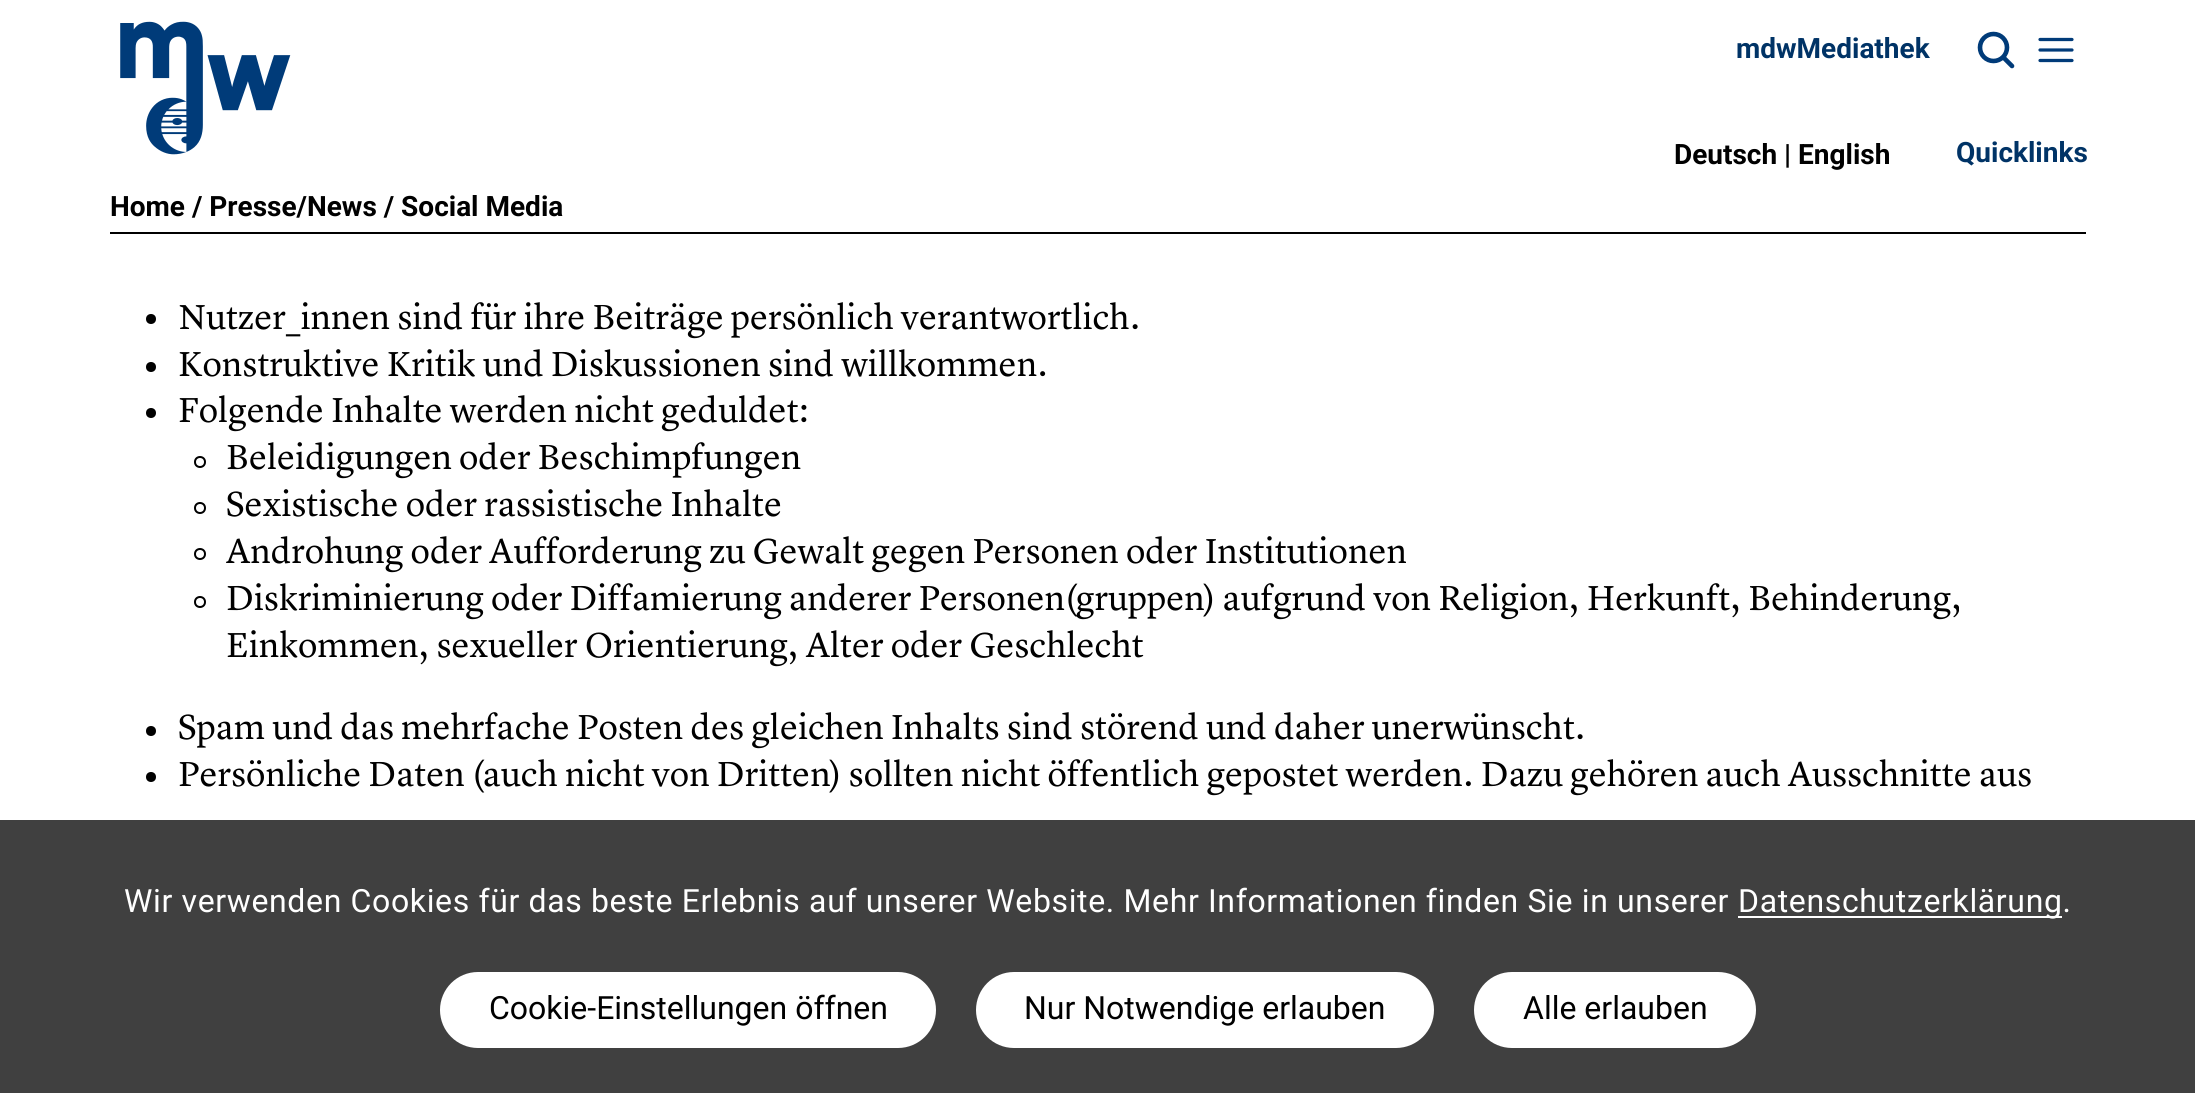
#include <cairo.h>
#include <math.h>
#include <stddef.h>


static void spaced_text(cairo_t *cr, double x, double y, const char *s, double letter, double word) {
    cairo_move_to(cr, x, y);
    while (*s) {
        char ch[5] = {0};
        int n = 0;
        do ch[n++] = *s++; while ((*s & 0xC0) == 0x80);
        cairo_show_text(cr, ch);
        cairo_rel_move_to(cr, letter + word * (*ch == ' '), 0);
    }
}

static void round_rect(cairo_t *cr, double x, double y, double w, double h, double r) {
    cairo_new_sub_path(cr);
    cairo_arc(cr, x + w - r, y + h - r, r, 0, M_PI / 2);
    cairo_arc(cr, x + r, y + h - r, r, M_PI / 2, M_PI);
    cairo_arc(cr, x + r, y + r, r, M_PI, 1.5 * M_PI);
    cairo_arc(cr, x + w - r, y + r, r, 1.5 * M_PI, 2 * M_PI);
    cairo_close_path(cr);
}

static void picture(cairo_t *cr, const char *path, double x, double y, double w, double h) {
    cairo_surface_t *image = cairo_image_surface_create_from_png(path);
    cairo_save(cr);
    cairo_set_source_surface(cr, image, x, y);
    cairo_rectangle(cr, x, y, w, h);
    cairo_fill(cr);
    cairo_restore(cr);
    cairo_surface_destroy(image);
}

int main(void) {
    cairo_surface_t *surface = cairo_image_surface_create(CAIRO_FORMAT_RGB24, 2195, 1093);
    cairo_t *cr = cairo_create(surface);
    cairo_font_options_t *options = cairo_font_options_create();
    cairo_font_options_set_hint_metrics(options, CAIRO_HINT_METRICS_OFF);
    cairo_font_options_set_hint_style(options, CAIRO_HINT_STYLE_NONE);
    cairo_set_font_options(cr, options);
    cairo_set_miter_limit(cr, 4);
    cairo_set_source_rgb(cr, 1, 1, 1);
    cairo_paint(cr);
    picture(cr, "img1.png", 120, 21, 171, 134);
    cairo_select_font_face(cr, "Roboto", CAIRO_FONT_SLANT_NORMAL, CAIRO_FONT_WEIGHT_BOLD);
    cairo_set_font_size(cr, 28);
    cairo_set_source_rgb(cr, 0, 0.2, 0.4);
    cairo_move_to(cr, 1736, 58);
    cairo_show_text(cr, "mdwMediathek");
    cairo_new_path(cr);
    cairo_arc(cr, 1993.5, 47.5, 13.5, 0, 2 * M_PI);
    cairo_set_source_rgb(cr, 0, 0.231, 0.475);
    cairo_set_line_width(cr, 4.6);
    cairo_stroke(cr);
    cairo_new_path(cr);
    cairo_move_to(cr, 2012, 66);
    cairo_line_to(cr, 2003.5, 57.5);
    cairo_set_line_cap(cr, CAIRO_LINE_CAP_ROUND);
    cairo_set_line_join(cr, CAIRO_LINE_JOIN_ROUND);
    cairo_stroke(cr);
    cairo_new_path(cr);
    cairo_move_to(cr, 2040, 50);
    cairo_line_to(cr, 2072, 50);
    cairo_move_to(cr, 2040, 39.5);
    cairo_line_to(cr, 2072, 39.5);
    cairo_move_to(cr, 2040, 60.5);
    cairo_line_to(cr, 2072, 60.5);
    cairo_set_line_width(cr, 3.2);
    cairo_stroke(cr);
    cairo_set_source_rgb(cr, 0, 0, 0);
    cairo_move_to(cr, 1674, 164);
    cairo_show_text(cr, "Deutsch | English");
    cairo_set_source_rgb(cr, 0, 0.2, 0.4);
    cairo_move_to(cr, 1956, 162);
    cairo_show_text(cr, "Quicklinks");
    cairo_set_source_rgb(cr, 0, 0, 0);
    cairo_rectangle(cr, 110, 232, 1976, 2);
    cairo_fill(cr);
    cairo_move_to(cr, 110, 216);
    cairo_show_text(cr, "Home / Presse/News / Social Media");
    cairo_new_path(cr);
    cairo_arc(cr, 151, 319, 5, 0, 2 * M_PI);
    cairo_fill(cr);
    cairo_select_font_face(cr, "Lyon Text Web", CAIRO_FONT_SLANT_NORMAL, CAIRO_FONT_WEIGHT_NORMAL);
    cairo_set_font_size(cr, 36);
    cairo_move_to(cr, 178, 329);
    cairo_show_text(cr, "Nutzer_innen sind für ihre Beiträge persönlich verantwortlich.");
    cairo_new_path(cr);
    cairo_arc(cr, 151, 367, 5, 0, 2 * M_PI);
    cairo_fill(cr);
    cairo_move_to(cr, 178, 376);
    cairo_show_text(cr, "Konstruktive Kritik und Diskussionen sind willkommen.");
    cairo_new_path(cr);
    cairo_arc(cr, 151, 413, 5, 0, 2 * M_PI);
    cairo_fill(cr);
    cairo_move_to(cr, 178, 422);
    cairo_show_text(cr, "Folgende Inhalte werden nicht geduldet:");
    cairo_new_path(cr);
    cairo_arc(cr, 200, 462, 5, 0, 2 * M_PI);
    cairo_set_line_width(cr, 2);
    cairo_set_line_cap(cr, CAIRO_LINE_CAP_BUTT);
    cairo_set_line_join(cr, CAIRO_LINE_JOIN_MITER);
    cairo_stroke(cr);
    cairo_move_to(cr, 226, 469);
    cairo_show_text(cr, "Beleidigungen oder Beschimpfungen");
    cairo_new_path(cr);
    cairo_arc(cr, 200, 508, 5, 0, 2 * M_PI);
    cairo_stroke(cr);
    cairo_move_to(cr, 226, 516);
    cairo_show_text(cr, "Sexistische oder rassistische Inhalte");
    cairo_new_path(cr);
    cairo_arc(cr, 200, 554, 5, 0, 2 * M_PI);
    cairo_stroke(cr);
    cairo_move_to(cr, 226, 563);
    cairo_show_text(cr, "Androhung oder Aufforderung zu Gewalt gegen Personen oder Institutionen");
    cairo_new_path(cr);
    cairo_arc(cr, 200, 602, 5, 0, 2 * M_PI);
    cairo_stroke(cr);
    cairo_move_to(cr, 226, 610);
    cairo_show_text(cr, "Diskriminierung oder Diffamierung anderer Personen(gruppen) aufgrund von Religion, Herkunft, Behinderung,");
    cairo_move_to(cr, 226, 657);
    cairo_show_text(cr, "Einkommen, sexueller Orientierung, Alter oder Geschlecht");
    cairo_new_path(cr);
    cairo_arc(cr, 151, 731, 5, 0, 2 * M_PI);
    cairo_fill(cr);
    cairo_move_to(cr, 178, 739);
    cairo_show_text(cr, "Spam und das mehrfache Posten des gleichen Inhalts sind störend und daher unerwünscht.");
    cairo_new_path(cr);
    cairo_arc(cr, 151, 777, 5, 0, 2 * M_PI);
    cairo_fill(cr);
    cairo_move_to(cr, 178, 786);
    cairo_show_text(cr, "Persönliche Daten (auch nicht von Dritten) sollten nicht öffentlich gepostet werden. Dazu gehören auch Ausschnitte aus");
    cairo_set_source_rgba(cr, 0, 0, 0, 0.75);
    cairo_rectangle(cr, 0, 820, 2195, 273);
    cairo_fill(cr);
    cairo_select_font_face(cr, "Roboto", CAIRO_FONT_SLANT_NORMAL, CAIRO_FONT_WEIGHT_NORMAL);
    cairo_set_font_size(cr, 32);
    cairo_set_source_rgb(cr, 1, 1, 1);
    spaced_text(cr, 124, 912, "Wir verwenden Cookies für das beste Erlebnis auf unserer Website. Mehr Informationen finden Sie in unserer", 0.64, 0);
    cairo_rectangle(cr, 1738, 916, 324, 2);
    cairo_fill(cr);
    spaced_text(cr, 1738, 912, "Datenschutzerklärung.", 0.64, 0);
    round_rect(cr, 440, 972, 496, 76, 38);
    cairo_fill(cr);
    cairo_set_source_rgb(cr, 0, 0, 0);
    cairo_move_to(cr, 489, 1019);
    cairo_show_text(cr, "Cookie-Einstellungen öffnen");
    cairo_set_source_rgb(cr, 1, 1, 1);
    round_rect(cr, 976, 972, 458, 76, 38);
    cairo_fill(cr);
    cairo_set_source_rgb(cr, 0, 0, 0);
    cairo_move_to(cr, 1024, 1019);
    cairo_show_text(cr, "Nur Notwendige erlauben");
    cairo_set_source_rgb(cr, 1, 1, 1);
    round_rect(cr, 1474, 972, 282, 76, 38);
    cairo_fill(cr);
    cairo_set_source_rgb(cr, 0, 0, 0);
    cairo_move_to(cr, 1523, 1019);
    cairo_show_text(cr, "Alle erlauben");
    cairo_surface_write_to_png(surface, "page.png");
    cairo_font_options_destroy(options);
    cairo_destroy(cr);
    cairo_surface_destroy(surface);
    return 0;
}
